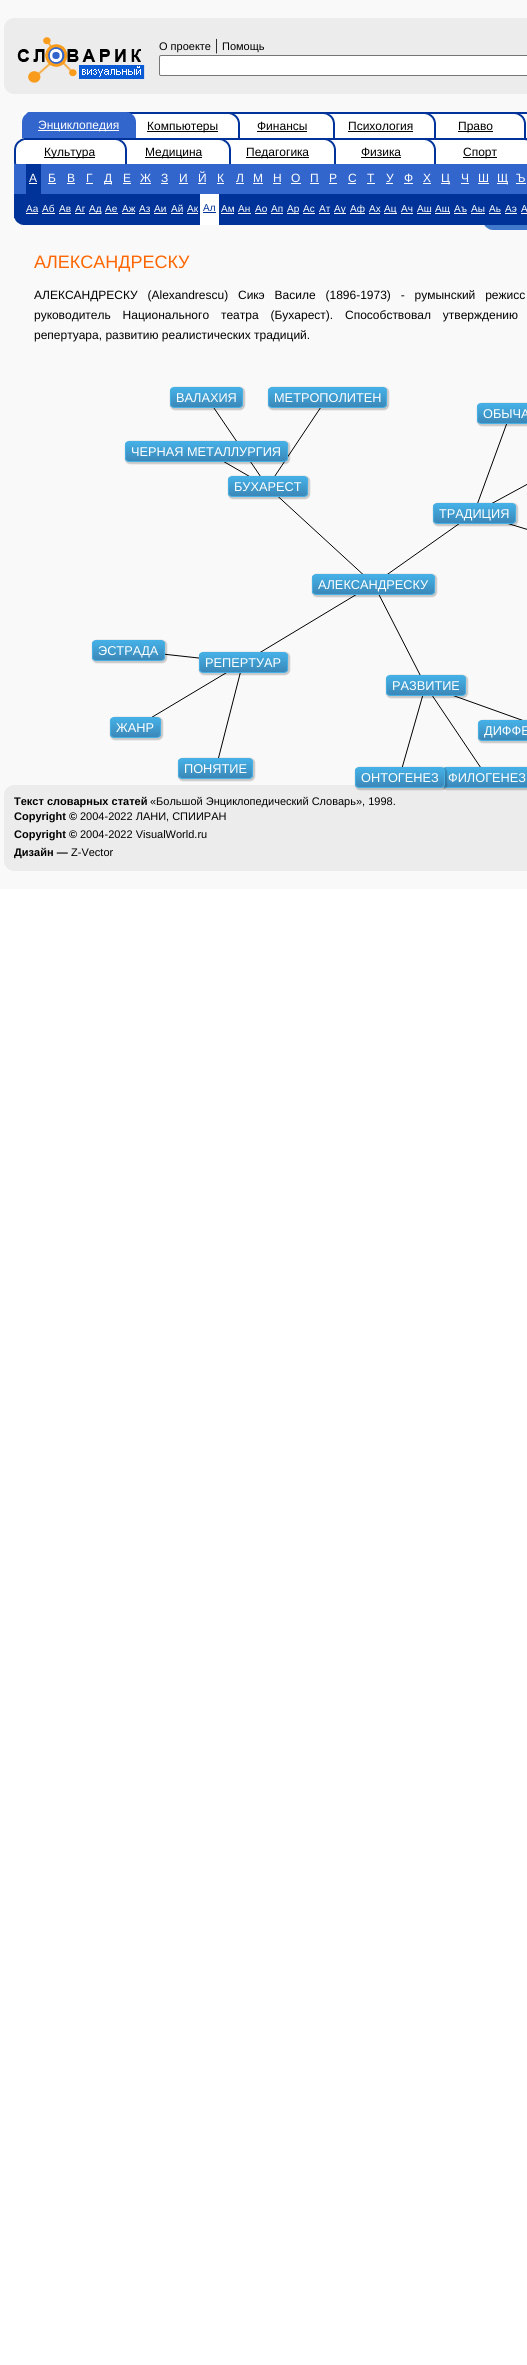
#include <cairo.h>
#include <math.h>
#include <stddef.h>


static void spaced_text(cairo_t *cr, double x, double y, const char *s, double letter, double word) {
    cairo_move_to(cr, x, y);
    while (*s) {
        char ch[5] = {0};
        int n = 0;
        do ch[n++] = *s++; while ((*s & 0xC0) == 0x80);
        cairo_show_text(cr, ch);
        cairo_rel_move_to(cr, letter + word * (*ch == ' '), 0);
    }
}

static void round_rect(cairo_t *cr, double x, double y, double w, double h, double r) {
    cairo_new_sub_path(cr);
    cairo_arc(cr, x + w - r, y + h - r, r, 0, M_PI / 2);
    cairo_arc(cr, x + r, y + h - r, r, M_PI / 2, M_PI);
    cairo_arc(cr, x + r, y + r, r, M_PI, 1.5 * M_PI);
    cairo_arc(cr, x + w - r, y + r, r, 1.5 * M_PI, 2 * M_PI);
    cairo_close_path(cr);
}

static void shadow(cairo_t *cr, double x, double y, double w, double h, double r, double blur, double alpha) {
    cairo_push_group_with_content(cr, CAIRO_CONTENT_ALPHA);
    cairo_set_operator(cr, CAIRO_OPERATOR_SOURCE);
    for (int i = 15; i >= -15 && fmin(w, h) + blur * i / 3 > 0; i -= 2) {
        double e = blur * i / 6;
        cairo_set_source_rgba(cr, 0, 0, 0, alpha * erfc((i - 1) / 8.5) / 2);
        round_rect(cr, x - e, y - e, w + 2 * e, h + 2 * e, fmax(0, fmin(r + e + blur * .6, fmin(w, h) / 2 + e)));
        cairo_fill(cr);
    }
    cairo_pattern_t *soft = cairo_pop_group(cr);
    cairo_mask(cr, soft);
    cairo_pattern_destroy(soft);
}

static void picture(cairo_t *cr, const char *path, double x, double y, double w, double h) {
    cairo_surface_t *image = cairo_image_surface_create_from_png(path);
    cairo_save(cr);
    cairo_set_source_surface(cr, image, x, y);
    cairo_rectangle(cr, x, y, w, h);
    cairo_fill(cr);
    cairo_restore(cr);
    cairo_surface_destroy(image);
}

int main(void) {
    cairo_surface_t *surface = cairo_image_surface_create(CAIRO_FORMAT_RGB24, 527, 2365);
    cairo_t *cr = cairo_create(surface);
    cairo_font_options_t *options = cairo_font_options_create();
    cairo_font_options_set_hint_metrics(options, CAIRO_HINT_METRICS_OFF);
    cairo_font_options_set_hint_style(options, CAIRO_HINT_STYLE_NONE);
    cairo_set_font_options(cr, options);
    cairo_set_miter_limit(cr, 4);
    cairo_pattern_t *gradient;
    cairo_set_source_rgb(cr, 1, 1, 1);
    cairo_paint(cr);
    cairo_set_source_rgb(cr, 0.976, 0.976, 0.976);
    cairo_rectangle(cr, 0, 0, 527, 889);
    cairo_fill(cr);
    picture(cr, "img1.png", 4, 18, 10, 10);
    cairo_set_source_rgb(cr, 0.925, 0.925, 0.925);
    cairo_rectangle(cr, 14, 18, 513, 10);
    cairo_fill(cr);
    cairo_rectangle(cr, 4, 28, 523, 56);
    cairo_fill(cr);
    picture(cr, "img2.png", 17, 37, 128, 46);
    cairo_select_font_face(cr, "Liberation Sans", CAIRO_FONT_SLANT_NORMAL, CAIRO_FONT_WEIGHT_NORMAL);
    cairo_set_font_size(cr, 11);
    cairo_set_source_rgb(cr, 0, 0, 0);
    cairo_move_to(cr, 159, 50);
    cairo_show_text(cr, "О проекте");
    cairo_select_font_face(cr, "Liberation Serif", CAIRO_FONT_SLANT_NORMAL, CAIRO_FONT_WEIGHT_NORMAL);
    cairo_set_font_size(cr, 16);
    cairo_move_to(cr, 215, 50);
    cairo_show_text(cr, "|");
    cairo_select_font_face(cr, "Liberation Sans", CAIRO_FONT_SLANT_NORMAL, CAIRO_FONT_WEIGHT_NORMAL);
    cairo_set_font_size(cr, 11);
    cairo_move_to(cr, 222, 50);
    cairo_show_text(cr, "Помощь");
    cairo_set_source_rgb(cr, 1, 1, 1);
    round_rect(cr, 159.5, 55.5, 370, 20, 1.5);
    cairo_fill_preserve(cr);
    cairo_set_source_rgb(cr, 0.463, 0.463, 0.463);
    cairo_set_line_width(cr, 1);
    cairo_stroke(cr);
    picture(cr, "img3.png", 4, 84, 10, 10);
    cairo_set_source_rgb(cr, 0.925, 0.925, 0.925);
    cairo_rectangle(cr, 14, 84, 513, 10);
    cairo_fill(cr);
    picture(cr, "img4.png", 22, 112, 10, 26);
    cairo_set_source_rgb(cr, 0.2, 0.4, 0.8);
    cairo_rectangle(cr, 32, 112, 92, 26);
    cairo_fill(cr);
    cairo_set_source_rgb(cr, 1, 1, 1);
    cairo_rectangle(cr, 38, 130, 81, 1);
    cairo_fill(cr);
    cairo_set_font_size(cr, 12);
    cairo_move_to(cr, 38, 129);
    cairo_show_text(cr, "Энциклопедия");
    picture(cr, "img5.png", 124, 112, 12, 26);
    cairo_rectangle(cr, 136, 114, 93, 24);
    cairo_fill(cr);
    cairo_set_source_rgb(cr, 0, 0.2, 0.6);
    cairo_rectangle(cr, 136, 112, 93, 2);
    cairo_fill(cr);
    cairo_set_source_rgb(cr, 0, 0, 0);
    cairo_rectangle(cr, 147, 131, 71, 1);
    cairo_fill(cr);
    cairo_move_to(cr, 147, 130);
    cairo_show_text(cr, "Компьютеры");
    picture(cr, "img6.png", 229, 112, 11, 26);
    cairo_set_source_rgb(cr, 1, 1, 1);
    cairo_rectangle(cr, 240, 114, 84, 24);
    cairo_fill(cr);
    cairo_set_source_rgb(cr, 0, 0.2, 0.6);
    cairo_rectangle(cr, 240, 112, 84, 2);
    cairo_fill(cr);
    cairo_set_source_rgb(cr, 0, 0, 0);
    cairo_move_to(cr, 257, 130);
    cairo_show_text(cr, "Финансы");
    cairo_rectangle(cr, 257, 131, 50, 1);
    cairo_fill(cr);
    picture(cr, "img6.png", 324, 112, 11, 26);
    cairo_set_source_rgb(cr, 1, 1, 1);
    cairo_rectangle(cr, 335, 114, 90, 24);
    cairo_fill(cr);
    cairo_set_source_rgb(cr, 0, 0.2, 0.6);
    cairo_rectangle(cr, 335, 112, 90, 2);
    cairo_fill(cr);
    cairo_set_source_rgb(cr, 0, 0, 0);
    cairo_move_to(cr, 348, 130);
    cairo_show_text(cr, "Психология");
    cairo_rectangle(cr, 348, 131, 65, 1);
    cairo_fill(cr);
    picture(cr, "img6.png", 425, 112, 11, 26);
    cairo_set_source_rgb(cr, 1, 1, 1);
    cairo_rectangle(cr, 436, 114, 79, 24);
    cairo_fill(cr);
    cairo_set_source_rgb(cr, 0, 0.2, 0.6);
    cairo_rectangle(cr, 436, 112, 79, 2);
    cairo_fill(cr);
    cairo_set_source_rgb(cr, 0, 0, 0);
    cairo_rectangle(cr, 458, 131, 35, 1);
    cairo_fill(cr);
    cairo_move_to(cr, 458, 130);
    cairo_show_text(cr, "Право");
    picture(cr, "img6.png", 515, 112, 11, 26);
    cairo_set_source_rgb(cr, 1, 1, 1);
    cairo_rectangle(cr, 526, 112, 1, 26);
    cairo_fill(cr);
    cairo_set_source_rgb(cr, 0, 0.2, 0.6);
    cairo_rectangle(cr, 526, 112, 1, 2);
    cairo_fill(cr);
    picture(cr, "img7.png", 14, 138, 10, 26);
    cairo_set_source_rgb(cr, 1, 1, 1);
    cairo_rectangle(cr, 24, 140, 92, 24);
    cairo_fill(cr);
    cairo_set_source_rgb(cr, 0, 0.2, 0.6);
    cairo_rectangle(cr, 24, 138, 92, 2);
    cairo_fill(cr);
    cairo_set_source_rgb(cr, 0, 0, 0);
    cairo_rectangle(cr, 44, 157, 51, 1);
    cairo_fill(cr);
    cairo_move_to(cr, 44, 156);
    cairo_show_text(cr, "Культура");
    picture(cr, "img6.png", 116, 138, 11, 26);
    cairo_set_source_rgb(cr, 1, 1, 1);
    cairo_rectangle(cr, 127, 140, 93, 24);
    cairo_fill(cr);
    cairo_set_source_rgb(cr, 0, 0.2, 0.6);
    cairo_rectangle(cr, 127, 138, 93, 2);
    cairo_fill(cr);
    cairo_set_source_rgb(cr, 0, 0, 0);
    cairo_rectangle(cr, 145, 157, 57, 1);
    cairo_fill(cr);
    cairo_move_to(cr, 145, 156);
    cairo_show_text(cr, "Медицина");
    picture(cr, "img6.png", 220, 138, 11, 26);
    cairo_set_source_rgb(cr, 1, 1, 1);
    cairo_rectangle(cr, 231, 140, 94, 24);
    cairo_fill(cr);
    cairo_set_source_rgb(cr, 0, 0.2, 0.6);
    cairo_rectangle(cr, 231, 138, 94, 2);
    cairo_fill(cr);
    cairo_set_source_rgb(cr, 0, 0, 0);
    cairo_rectangle(cr, 246, 157, 63, 1);
    cairo_fill(cr);
    cairo_move_to(cr, 246, 156);
    cairo_show_text(cr, "Педагогика");
    picture(cr, "img6.png", 325, 138, 11, 26);
    cairo_set_source_rgb(cr, 1, 1, 1);
    cairo_rectangle(cr, 336, 140, 89, 24);
    cairo_fill(cr);
    cairo_set_source_rgb(cr, 0, 0.2, 0.6);
    cairo_rectangle(cr, 336, 138, 89, 2);
    cairo_fill(cr);
    cairo_set_source_rgb(cr, 0, 0, 0);
    cairo_move_to(cr, 361, 156);
    cairo_show_text(cr, "Физика");
    cairo_rectangle(cr, 361, 157, 40, 1);
    cairo_fill(cr);
    picture(cr, "img6.png", 425, 138, 11, 26);
    cairo_set_source_rgb(cr, 1, 1, 1);
    cairo_rectangle(cr, 436, 140, 89, 24);
    cairo_fill(cr);
    cairo_set_source_rgb(cr, 0, 0.2, 0.6);
    cairo_rectangle(cr, 436, 138, 89, 2);
    cairo_fill(cr);
    cairo_set_source_rgb(cr, 0, 0, 0);
    cairo_rectangle(cr, 463, 157, 34, 1);
    cairo_fill(cr);
    cairo_move_to(cr, 463, 156);
    cairo_show_text(cr, "Спорт");
    picture(cr, "img8.png", 525, 138, 2, 26);
    cairo_set_source_rgb(cr, 0.2, 0.4, 0.8);
    cairo_rectangle(cr, 14, 164, 513, 30);
    cairo_fill(cr);
    cairo_set_source_rgb(cr, 0, 0.2, 0.6);
    cairo_rectangle(cr, 26, 164, 15, 30);
    cairo_fill(cr);
    cairo_set_source_rgb(cr, 1, 1, 1);
    cairo_move_to(cr, 29, 182);
    cairo_show_text(cr, "А");
    cairo_rectangle(cr, 29, 183, 8, 1);
    cairo_fill(cr);
    cairo_move_to(cr, 48, 182);
    cairo_show_text(cr, "Б");
    cairo_rectangle(cr, 48, 183, 8, 1);
    cairo_fill(cr);
    cairo_move_to(cr, 67, 182);
    cairo_show_text(cr, "В");
    cairo_rectangle(cr, 67, 183, 8, 1);
    cairo_fill(cr);
    cairo_move_to(cr, 86, 182);
    cairo_show_text(cr, "Г");
    cairo_rectangle(cr, 86, 183, 7, 1);
    cairo_fill(cr);
    cairo_rectangle(cr, 104, 183, 8, 1);
    cairo_fill(cr);
    cairo_move_to(cr, 104, 182);
    cairo_show_text(cr, "Д");
    cairo_move_to(cr, 123, 182);
    cairo_show_text(cr, "Е");
    cairo_rectangle(cr, 123, 183, 8, 1);
    cairo_fill(cr);
    cairo_move_to(cr, 140, 182);
    cairo_show_text(cr, "Ж");
    cairo_rectangle(cr, 140, 183, 11, 1);
    cairo_fill(cr);
    cairo_move_to(cr, 161, 182);
    cairo_show_text(cr, "З");
    cairo_rectangle(cr, 161, 183, 7, 1);
    cairo_fill(cr);
    cairo_move_to(cr, 179, 182);
    cairo_show_text(cr, "И");
    cairo_rectangle(cr, 179, 183, 9, 1);
    cairo_fill(cr);
    cairo_move_to(cr, 198, 182);
    cairo_show_text(cr, "Й");
    cairo_rectangle(cr, 198, 183, 8, 1);
    cairo_fill(cr);
    cairo_move_to(cr, 217, 182);
    cairo_show_text(cr, "К");
    cairo_rectangle(cr, 217, 183, 7, 1);
    cairo_fill(cr);
    cairo_move_to(cr, 236, 182);
    cairo_show_text(cr, "Л");
    cairo_rectangle(cr, 236, 183, 8, 1);
    cairo_fill(cr);
    cairo_move_to(cr, 253, 182);
    cairo_show_text(cr, "М");
    cairo_rectangle(cr, 253, 183, 10, 1);
    cairo_fill(cr);
    cairo_move_to(cr, 273, 182);
    cairo_show_text(cr, "Н");
    cairo_rectangle(cr, 273, 183, 8, 1);
    cairo_fill(cr);
    cairo_move_to(cr, 291, 182);
    cairo_show_text(cr, "О");
    cairo_rectangle(cr, 291, 183, 10, 1);
    cairo_fill(cr);
    cairo_move_to(cr, 310, 182);
    cairo_show_text(cr, "П");
    cairo_rectangle(cr, 310, 183, 9, 1);
    cairo_fill(cr);
    cairo_move_to(cr, 329, 182);
    cairo_show_text(cr, "Р");
    cairo_rectangle(cr, 329, 183, 8, 1);
    cairo_fill(cr);
    cairo_move_to(cr, 348, 182);
    cairo_show_text(cr, "С");
    cairo_rectangle(cr, 348, 183, 8, 1);
    cairo_fill(cr);
    cairo_move_to(cr, 367, 182);
    cairo_show_text(cr, "Т");
    cairo_rectangle(cr, 367, 183, 8, 1);
    cairo_fill(cr);
    cairo_move_to(cr, 386, 182);
    cairo_show_text(cr, "У");
    cairo_rectangle(cr, 386, 183, 7, 1);
    cairo_fill(cr);
    cairo_move_to(cr, 404, 182);
    cairo_show_text(cr, "Ф");
    cairo_rectangle(cr, 404, 183, 9, 1);
    cairo_fill(cr);
    cairo_move_to(cr, 423, 182);
    cairo_show_text(cr, "Х");
    cairo_rectangle(cr, 423, 183, 8, 1);
    cairo_fill(cr);
    cairo_rectangle(cr, 441, 183, 9, 1);
    cairo_fill(cr);
    cairo_move_to(cr, 441, 182);
    cairo_show_text(cr, "Ц");
    cairo_move_to(cr, 461, 182);
    cairo_show_text(cr, "Ч");
    cairo_rectangle(cr, 461, 183, 8, 1);
    cairo_fill(cr);
    cairo_move_to(cr, 478, 182);
    cairo_show_text(cr, "Ш");
    cairo_rectangle(cr, 478, 183, 11, 1);
    cairo_fill(cr);
    cairo_rectangle(cr, 497, 183, 11, 1);
    cairo_fill(cr);
    cairo_move_to(cr, 497, 182);
    cairo_show_text(cr, "Щ");
    cairo_move_to(cr, 516, 182);
    cairo_show_text(cr, "Ъ");
    cairo_rectangle(cr, 516, 183, 10, 1);
    cairo_fill(cr);
    cairo_set_source_rgb(cr, 0, 0.2, 0.6);
    cairo_rectangle(cr, 14, 194, 513, 31);
    cairo_fill(cr);
    cairo_set_font_size(cr, 10);
    cairo_set_source_rgb(cr, 1, 1, 1);
    cairo_move_to(cr, 26, 212);
    cairo_show_text(cr, "Аа");
    cairo_rectangle(cr, 26, 213, 12, 1);
    cairo_fill(cr);
    cairo_move_to(cr, 42, 212);
    cairo_show_text(cr, "Аб");
    cairo_rectangle(cr, 42, 213, 13, 1);
    cairo_fill(cr);
    cairo_move_to(cr, 59, 212);
    cairo_show_text(cr, "Ав");
    cairo_rectangle(cr, 59, 213, 12, 1);
    cairo_fill(cr);
    cairo_move_to(cr, 75, 212);
    cairo_show_text(cr, "Аг");
    cairo_rectangle(cr, 75, 213, 10, 1);
    cairo_fill(cr);
    cairo_rectangle(cr, 89, 213, 12, 1);
    cairo_fill(cr);
    cairo_move_to(cr, 89, 212);
    cairo_show_text(cr, "Ад");
    cairo_move_to(cr, 105, 212);
    cairo_show_text(cr, "Ае");
    cairo_rectangle(cr, 105, 213, 13, 1);
    cairo_fill(cr);
    cairo_move_to(cr, 122, 212);
    cairo_show_text(cr, "Аж");
    cairo_rectangle(cr, 122, 213, 13, 1);
    cairo_fill(cr);
    cairo_move_to(cr, 139, 212);
    cairo_show_text(cr, "Аз");
    cairo_rectangle(cr, 139, 213, 11, 1);
    cairo_fill(cr);
    cairo_move_to(cr, 154, 212);
    cairo_show_text(cr, "Аи");
    cairo_rectangle(cr, 154, 213, 13, 1);
    cairo_fill(cr);
    cairo_move_to(cr, 171, 212);
    cairo_show_text(cr, "Ай");
    cairo_rectangle(cr, 171, 213, 12, 1);
    cairo_fill(cr);
    cairo_move_to(cr, 187, 212);
    cairo_show_text(cr, "Ак");
    cairo_rectangle(cr, 187, 213, 11, 1);
    cairo_fill(cr);
    cairo_rectangle(cr, 200, 194, 19, 31);
    cairo_fill(cr);
    cairo_set_source_rgb(cr, 0, 0.2, 0.6);
    cairo_move_to(cr, 203, 211);
    cairo_show_text(cr, "Ал");
    cairo_rectangle(cr, 203, 212, 13, 1);
    cairo_fill(cr);
    cairo_set_source_rgb(cr, 1, 1, 1);
    cairo_move_to(cr, 221, 212);
    cairo_show_text(cr, "Ам");
    cairo_rectangle(cr, 221, 213, 13, 1);
    cairo_fill(cr);
    cairo_move_to(cr, 238, 212);
    cairo_show_text(cr, "Ан");
    cairo_rectangle(cr, 238, 213, 13, 1);
    cairo_fill(cr);
    cairo_move_to(cr, 255, 212);
    cairo_show_text(cr, "Ао");
    cairo_rectangle(cr, 255, 213, 12, 1);
    cairo_fill(cr);
    cairo_move_to(cr, 271, 212);
    cairo_show_text(cr, "Ап");
    cairo_rectangle(cr, 271, 213, 12, 1);
    cairo_fill(cr);
    cairo_rectangle(cr, 287, 213, 12, 1);
    cairo_fill(cr);
    cairo_move_to(cr, 287, 212);
    cairo_show_text(cr, "Ар");
    cairo_move_to(cr, 303, 212);
    cairo_show_text(cr, "Ас");
    cairo_rectangle(cr, 303, 213, 12, 1);
    cairo_fill(cr);
    cairo_move_to(cr, 319, 212);
    cairo_show_text(cr, "Ат");
    cairo_rectangle(cr, 319, 213, 11, 1);
    cairo_fill(cr);
    cairo_rectangle(cr, 334, 213, 12, 1);
    cairo_fill(cr);
    cairo_move_to(cr, 334, 212);
    cairo_show_text(cr, "Ау");
    cairo_rectangle(cr, 350, 213, 15, 1);
    cairo_fill(cr);
    cairo_move_to(cr, 350, 212);
    cairo_show_text(cr, "Аф");
    cairo_move_to(cr, 369, 212);
    cairo_show_text(cr, "Ах");
    cairo_rectangle(cr, 369, 213, 11, 1);
    cairo_fill(cr);
    cairo_rectangle(cr, 384, 213, 13, 1);
    cairo_fill(cr);
    cairo_move_to(cr, 384, 212);
    cairo_show_text(cr, "Ац");
    cairo_move_to(cr, 401, 212);
    cairo_show_text(cr, "Ач");
    cairo_rectangle(cr, 401, 213, 12, 1);
    cairo_fill(cr);
    cairo_move_to(cr, 417, 212);
    cairo_show_text(cr, "Аш");
    cairo_rectangle(cr, 417, 213, 14, 1);
    cairo_fill(cr);
    cairo_rectangle(cr, 435, 213, 15, 1);
    cairo_fill(cr);
    cairo_move_to(cr, 435, 212);
    cairo_show_text(cr, "Ащ");
    cairo_move_to(cr, 454, 212);
    cairo_show_text(cr, "Аъ");
    cairo_rectangle(cr, 454, 213, 13, 1);
    cairo_fill(cr);
    cairo_move_to(cr, 471, 212);
    cairo_show_text(cr, "Аы");
    cairo_rectangle(cr, 471, 213, 14, 1);
    cairo_fill(cr);
    cairo_move_to(cr, 489, 212);
    cairo_show_text(cr, "Аь");
    cairo_rectangle(cr, 489, 213, 12, 1);
    cairo_fill(cr);
    cairo_move_to(cr, 505, 212);
    cairo_show_text(cr, "Аэ");
    cairo_rectangle(cr, 505, 213, 12, 1);
    cairo_fill(cr);
    cairo_move_to(cr, 521, 212);
    cairo_show_text(cr, "А");
    cairo_rectangle(cr, 521, 213, 6, 1);
    cairo_fill(cr);
    picture(cr, "img9.png", 14, 218, 9, 7);
    picture(cr, "img10.png", 484, 225, 43, 5);
    cairo_set_font_size(cr, 18);
    cairo_set_source_rgb(cr, 1, 0.4, 0);
    cairo_move_to(cr, 34, 268);
    cairo_show_text(cr, "АЛЕКСАНДРЕСКУ");
    cairo_set_font_size(cr, 12);
    cairo_set_source_rgb(cr, 0, 0, 0);
    spaced_text(cr, 34, 299, "АЛЕКСАНДРЕСКУ (Alexandrescu) Сикэ Василе (1896-1973) - румынский режисс", 0, 6.5);
    spaced_text(cr, 34, 319, "руководитель Национального театра (Бухарест). Способствовал утверждению", 0, 8.5);
    cairo_move_to(cr, 34, 339);
    cairo_show_text(cr, "репертуара, развитию реалистических традиций.");
    picture(cr, "img11.png", 152, 408, 375, 359);
    cairo_set_source_rgb(cr, 0, 0, 0);
    shadow(cr, 170, 387, 75, 23, 5, 0.5, 0.2);
    cairo_save(cr);
    round_rect(cr, 170, 387, 73, 21, 4);
    cairo_clip(cr);
    gradient = cairo_pattern_create_linear(171, 407, 171, 388);
    cairo_pattern_add_color_stop_rgba(gradient, 0, 0.231, 0.533, 0.722, 1);
    cairo_pattern_add_color_stop_rgba(gradient, 0.99, 0.271, 0.69, 0.902, 1);
    cairo_set_source(cr, gradient);
    cairo_pattern_destroy(gradient);
    cairo_rectangle(cr, 170, 388, 73, 19);
    cairo_fill(cr);
    cairo_restore(cr);
    round_rect(cr, 170.5, 387.5, 72, 20, 3.5);
    cairo_set_source_rgb(cr, 0.271, 0.69, 0.902);
    cairo_stroke(cr);
    cairo_set_font_size(cr, 12.75);
    cairo_set_source_rgb(cr, 1, 1, 1);
    cairo_move_to(cr, 176, 402);
    cairo_show_text(cr, "ВАЛАХИЯ");
    cairo_set_source_rgb(cr, 0, 0, 0);
    shadow(cr, 268, 387, 121, 23, 5, 0.5, 0.2);
    cairo_save(cr);
    round_rect(cr, 268, 387, 119, 21, 4);
    cairo_clip(cr);
    gradient = cairo_pattern_create_linear(269, 407, 269, 388);
    cairo_pattern_add_color_stop_rgba(gradient, 0, 0.231, 0.533, 0.722, 1);
    cairo_pattern_add_color_stop_rgba(gradient, 0.99, 0.271, 0.69, 0.902, 1);
    cairo_set_source(cr, gradient);
    cairo_pattern_destroy(gradient);
    cairo_rectangle(cr, 268, 388, 119, 19);
    cairo_fill(cr);
    cairo_restore(cr);
    round_rect(cr, 268.5, 387.5, 118, 20, 3.5);
    cairo_set_source_rgb(cr, 0.271, 0.69, 0.902);
    cairo_stroke(cr);
    cairo_set_source_rgb(cr, 1, 1, 1);
    cairo_move_to(cr, 274, 402);
    cairo_show_text(cr, "МЕТРОПОЛИТЕН");
    cairo_set_source_rgb(cr, 0, 0, 0);
    shadow(cr, 477, 403, 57, 23, 5, 0.5, 0.2);
    cairo_save(cr);
    round_rect(cr, 477, 403, 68, 21, 4);
    cairo_clip(cr);
    gradient = cairo_pattern_create_linear(478, 423, 478, 404);
    cairo_pattern_add_color_stop_rgba(gradient, 0, 0.231, 0.533, 0.722, 1);
    cairo_pattern_add_color_stop_rgba(gradient, 0.99, 0.271, 0.69, 0.902, 1);
    cairo_set_source(cr, gradient);
    cairo_pattern_destroy(gradient);
    cairo_rectangle(cr, 477, 404, 50, 19);
    cairo_fill(cr);
    cairo_restore(cr);
    round_rect(cr, 477.5, 403.5, 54, 20, 3.5);
    cairo_set_source_rgb(cr, 0.271, 0.69, 0.902);
    cairo_stroke(cr);
    cairo_set_source_rgb(cr, 1, 1, 1);
    cairo_move_to(cr, 483, 418);
    cairo_show_text(cr, "ОБЫЧА");
    cairo_set_source_rgb(cr, 0, 0, 0);
    shadow(cr, 125, 441, 165, 23, 5, 0.5, 0.2);
    cairo_save(cr);
    round_rect(cr, 125, 441, 163, 21, 4);
    cairo_clip(cr);
    gradient = cairo_pattern_create_linear(126, 461, 126, 442);
    cairo_pattern_add_color_stop_rgba(gradient, 0, 0.231, 0.533, 0.722, 1);
    cairo_pattern_add_color_stop_rgba(gradient, 0.99, 0.271, 0.69, 0.902, 1);
    cairo_set_source(cr, gradient);
    cairo_pattern_destroy(gradient);
    cairo_rectangle(cr, 125, 442, 163, 19);
    cairo_fill(cr);
    cairo_restore(cr);
    round_rect(cr, 125.5, 441.5, 162, 20, 3.5);
    cairo_set_source_rgb(cr, 0.271, 0.69, 0.902);
    cairo_stroke(cr);
    cairo_set_source_rgb(cr, 1, 1, 1);
    cairo_move_to(cr, 131, 456);
    cairo_show_text(cr, "ЧЕРНАЯ МЕТАЛЛУРГИЯ");
    cairo_set_source_rgb(cr, 0, 0, 0);
    shadow(cr, 228, 476, 82, 23, 5, 0.5, 0.2);
    cairo_save(cr);
    round_rect(cr, 228, 476, 80, 21, 4);
    cairo_clip(cr);
    gradient = cairo_pattern_create_linear(229, 496, 229, 477);
    cairo_pattern_add_color_stop_rgba(gradient, 0, 0.231, 0.533, 0.722, 1);
    cairo_pattern_add_color_stop_rgba(gradient, 0.99, 0.271, 0.69, 0.902, 1);
    cairo_set_source(cr, gradient);
    cairo_pattern_destroy(gradient);
    cairo_rectangle(cr, 228, 477, 80, 19);
    cairo_fill(cr);
    cairo_restore(cr);
    round_rect(cr, 228.5, 476.5, 79, 20, 3.5);
    cairo_set_source_rgb(cr, 0.271, 0.69, 0.902);
    cairo_stroke(cr);
    cairo_set_source_rgb(cr, 1, 1, 1);
    cairo_move_to(cr, 234, 491);
    cairo_show_text(cr, "БУХАРЕСТ");
    cairo_set_source_rgb(cr, 0, 0, 0);
    shadow(cr, 433, 503, 85, 23, 5, 0.5, 0.2);
    cairo_save(cr);
    round_rect(cr, 433, 503, 83, 21, 4);
    cairo_clip(cr);
    gradient = cairo_pattern_create_linear(434, 523, 434, 504);
    cairo_pattern_add_color_stop_rgba(gradient, 0, 0.231, 0.533, 0.722, 1);
    cairo_pattern_add_color_stop_rgba(gradient, 0.99, 0.271, 0.69, 0.902, 1);
    cairo_set_source(cr, gradient);
    cairo_pattern_destroy(gradient);
    cairo_rectangle(cr, 433, 504, 83, 19);
    cairo_fill(cr);
    cairo_restore(cr);
    round_rect(cr, 433.5, 503.5, 82, 20, 3.5);
    cairo_set_source_rgb(cr, 0.271, 0.69, 0.902);
    cairo_stroke(cr);
    cairo_set_source_rgb(cr, 1, 1, 1);
    cairo_move_to(cr, 439, 518);
    cairo_show_text(cr, "ТРАДИЦИЯ");
    cairo_set_source_rgb(cr, 0, 0, 0);
    shadow(cr, 312, 574, 125, 23, 5, 0.5, 0.2);
    cairo_save(cr);
    round_rect(cr, 312, 574, 123, 21, 4);
    cairo_clip(cr);
    gradient = cairo_pattern_create_linear(313, 594, 313, 575);
    cairo_pattern_add_color_stop_rgba(gradient, 0, 0.231, 0.533, 0.722, 1);
    cairo_pattern_add_color_stop_rgba(gradient, 0.99, 0.271, 0.69, 0.902, 1);
    cairo_set_source(cr, gradient);
    cairo_pattern_destroy(gradient);
    cairo_rectangle(cr, 312, 575, 123, 19);
    cairo_fill(cr);
    cairo_restore(cr);
    round_rect(cr, 312.5, 574.5, 122, 20, 3.5);
    cairo_set_source_rgb(cr, 0.271, 0.69, 0.902);
    cairo_stroke(cr);
    cairo_set_source_rgb(cr, 1, 1, 1);
    cairo_move_to(cr, 318, 589);
    cairo_show_text(cr, "АЛЕКСАНДРЕСКУ");
    cairo_set_source_rgb(cr, 0, 0, 0);
    shadow(cr, 92, 640, 75, 23, 5, 0.5, 0.2);
    cairo_save(cr);
    round_rect(cr, 92, 640, 73, 21, 4);
    cairo_clip(cr);
    gradient = cairo_pattern_create_linear(93, 660, 93, 641);
    cairo_pattern_add_color_stop_rgba(gradient, 0, 0.231, 0.533, 0.722, 1);
    cairo_pattern_add_color_stop_rgba(gradient, 0.99, 0.271, 0.69, 0.902, 1);
    cairo_set_source(cr, gradient);
    cairo_pattern_destroy(gradient);
    cairo_rectangle(cr, 92, 641, 73, 19);
    cairo_fill(cr);
    cairo_restore(cr);
    round_rect(cr, 92.5, 640.5, 72, 20, 3.5);
    cairo_set_source_rgb(cr, 0.271, 0.69, 0.902);
    cairo_stroke(cr);
    cairo_set_source_rgb(cr, 1, 1, 1);
    cairo_move_to(cr, 98, 655);
    cairo_show_text(cr, "ЭСТРАДА");
    cairo_set_source_rgb(cr, 0, 0, 0);
    shadow(cr, 199, 652, 91, 23, 5, 0.5, 0.2);
    cairo_save(cr);
    round_rect(cr, 199, 652, 89, 21, 4);
    cairo_clip(cr);
    gradient = cairo_pattern_create_linear(200, 672, 200, 653);
    cairo_pattern_add_color_stop_rgba(gradient, 0, 0.231, 0.533, 0.722, 1);
    cairo_pattern_add_color_stop_rgba(gradient, 0.99, 0.271, 0.69, 0.902, 1);
    cairo_set_source(cr, gradient);
    cairo_pattern_destroy(gradient);
    cairo_rectangle(cr, 199, 653, 89, 19);
    cairo_fill(cr);
    cairo_restore(cr);
    round_rect(cr, 199.5, 652.5, 88, 20, 3.5);
    cairo_set_source_rgb(cr, 0.271, 0.69, 0.902);
    cairo_stroke(cr);
    cairo_set_source_rgb(cr, 1, 1, 1);
    cairo_move_to(cr, 205, 667);
    cairo_show_text(cr, "РЕПЕРТУАР");
    cairo_set_source_rgb(cr, 0, 0, 0);
    shadow(cr, 386, 675, 82, 23, 5, 0.5, 0.2);
    cairo_save(cr);
    round_rect(cr, 386, 675, 80, 21, 4);
    cairo_clip(cr);
    gradient = cairo_pattern_create_linear(387, 695, 387, 676);
    cairo_pattern_add_color_stop_rgba(gradient, 0, 0.231, 0.533, 0.722, 1);
    cairo_pattern_add_color_stop_rgba(gradient, 0.99, 0.271, 0.69, 0.902, 1);
    cairo_set_source(cr, gradient);
    cairo_pattern_destroy(gradient);
    cairo_rectangle(cr, 386, 676, 80, 19);
    cairo_fill(cr);
    cairo_restore(cr);
    round_rect(cr, 386.5, 675.5, 79, 20, 3.5);
    cairo_set_source_rgb(cr, 0.271, 0.69, 0.902);
    cairo_stroke(cr);
    cairo_set_source_rgb(cr, 1, 1, 1);
    cairo_move_to(cr, 392, 690);
    cairo_show_text(cr, "РАЗВИТИЕ");
    cairo_set_source_rgb(cr, 0, 0, 0);
    shadow(cr, 110, 717, 53, 23, 5, 0.5, 0.2);
    cairo_save(cr);
    round_rect(cr, 110, 717, 51, 21, 4);
    cairo_clip(cr);
    gradient = cairo_pattern_create_linear(111, 737, 111, 718);
    cairo_pattern_add_color_stop_rgba(gradient, 0, 0.231, 0.533, 0.722, 1);
    cairo_pattern_add_color_stop_rgba(gradient, 0.99, 0.271, 0.69, 0.902, 1);
    cairo_set_source(cr, gradient);
    cairo_pattern_destroy(gradient);
    cairo_rectangle(cr, 110, 718, 51, 19);
    cairo_fill(cr);
    cairo_restore(cr);
    round_rect(cr, 110.5, 717.5, 50, 20, 3.5);
    cairo_set_source_rgb(cr, 0.271, 0.69, 0.902);
    cairo_stroke(cr);
    cairo_set_source_rgb(cr, 1, 1, 1);
    cairo_move_to(cr, 116, 732);
    cairo_show_text(cr, "ЖАНР");
    cairo_set_source_rgb(cr, 0, 0, 0);
    shadow(cr, 478, 720, 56, 23, 5, 0.5, 0.2);
    cairo_save(cr);
    round_rect(cr, 478, 720, 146, 21, 4);
    cairo_clip(cr);
    gradient = cairo_pattern_create_linear(479, 740, 479, 721);
    cairo_pattern_add_color_stop_rgba(gradient, 0, 0.231, 0.533, 0.722, 1);
    cairo_pattern_add_color_stop_rgba(gradient, 0.99, 0.271, 0.69, 0.902, 1);
    cairo_set_source(cr, gradient);
    cairo_pattern_destroy(gradient);
    cairo_rectangle(cr, 478, 721, 49, 19);
    cairo_fill(cr);
    cairo_restore(cr);
    round_rect(cr, 478.5, 720.5, 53, 20, 3.5);
    cairo_set_source_rgb(cr, 0.271, 0.69, 0.902);
    cairo_stroke(cr);
    cairo_set_source_rgb(cr, 1, 1, 1);
    cairo_move_to(cr, 484, 735);
    cairo_show_text(cr, "ДИФФЕ");
    cairo_set_source_rgb(cr, 0, 0, 0);
    shadow(cr, 178, 758, 77, 23, 5, 0.5, 0.2);
    cairo_save(cr);
    round_rect(cr, 178, 758, 75, 21, 4);
    cairo_clip(cr);
    gradient = cairo_pattern_create_linear(179, 778, 179, 759);
    cairo_pattern_add_color_stop_rgba(gradient, 0, 0.231, 0.533, 0.722, 1);
    cairo_pattern_add_color_stop_rgba(gradient, 0.99, 0.271, 0.69, 0.902, 1);
    cairo_set_source(cr, gradient);
    cairo_pattern_destroy(gradient);
    cairo_rectangle(cr, 178, 759, 75, 19);
    cairo_fill(cr);
    cairo_restore(cr);
    round_rect(cr, 178.5, 758.5, 74, 20, 3.5);
    cairo_set_source_rgb(cr, 0.271, 0.69, 0.902);
    cairo_stroke(cr);
    cairo_set_source_rgb(cr, 1, 1, 1);
    cairo_move_to(cr, 184, 773);
    cairo_show_text(cr, "ПОНЯТИЕ");
    cairo_set_source_rgb(cr, 0.925, 0.925, 0.925);
    cairo_rectangle(cr, 14, 785, 513, 10);
    cairo_fill(cr);
    cairo_set_source_rgb(cr, 0, 0, 0);
    shadow(cr, 442, 767, 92, 23, 5, 0.5, 0.2);
    gradient = cairo_pattern_create_linear(443, 787, 443, 768);
    cairo_pattern_add_color_stop_rgba(gradient, 0, 0.231, 0.533, 0.722, 1);
    cairo_pattern_add_color_stop_rgba(gradient, 0.99, 0.271, 0.69, 0.902, 1);
    cairo_set_source(cr, gradient);
    cairo_pattern_destroy(gradient);
    cairo_rectangle(cr, 443, 768, 84, 19);
    cairo_fill(cr);
    round_rect(cr, 442.5, 767.5, 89, 20, 3.5);
    cairo_set_source_rgb(cr, 0.271, 0.69, 0.902);
    cairo_stroke(cr);
    cairo_set_source_rgb(cr, 0, 0, 0);
    shadow(cr, 355, 767, 92, 23, 5, 0.5, 0.2);
    cairo_save(cr);
    round_rect(cr, 355, 767, 90, 21, 4);
    cairo_clip(cr);
    gradient = cairo_pattern_create_linear(356, 787, 356, 768);
    cairo_pattern_add_color_stop_rgba(gradient, 0, 0.231, 0.533, 0.722, 1);
    cairo_pattern_add_color_stop_rgba(gradient, 0.99, 0.271, 0.69, 0.902, 1);
    cairo_set_source(cr, gradient);
    cairo_pattern_destroy(gradient);
    cairo_rectangle(cr, 355, 768, 90, 19);
    cairo_fill(cr);
    cairo_restore(cr);
    round_rect(cr, 355.5, 767.5, 89, 20, 3.5);
    cairo_set_source_rgb(cr, 0.271, 0.69, 0.902);
    cairo_stroke(cr);
    cairo_set_source_rgb(cr, 1, 1, 1);
    cairo_move_to(cr, 361, 782);
    cairo_show_text(cr, "ОНТОГЕНЕЗ");
    cairo_move_to(cr, 448, 782);
    cairo_show_text(cr, "ФИЛОГЕНЕЗ");
    picture(cr, "img1.png", 4, 785, 10, 10);
    cairo_set_source_rgb(cr, 0.925, 0.925, 0.925);
    cairo_rectangle(cr, 4, 795, 523, 66);
    cairo_fill(cr);
    cairo_select_font_face(cr, "Liberation Sans", CAIRO_FONT_SLANT_NORMAL, CAIRO_FONT_WEIGHT_BOLD);
    cairo_set_font_size(cr, 11);
    cairo_set_source_rgb(cr, 0, 0, 0);
    cairo_move_to(cr, 14, 805);
    cairo_show_text(cr, "Текст словарных статей");
    cairo_select_font_face(cr, "Liberation Sans", CAIRO_FONT_SLANT_NORMAL, CAIRO_FONT_WEIGHT_NORMAL);
    cairo_move_to(cr, 150, 805);
    cairo_show_text(cr, "«Большой Энциклопедический Словарь», 1998.");
    cairo_select_font_face(cr, "Liberation Sans", CAIRO_FONT_SLANT_NORMAL, CAIRO_FONT_WEIGHT_BOLD);
    cairo_move_to(cr, 14, 820);
    cairo_show_text(cr, "Copyright ©");
    cairo_select_font_face(cr, "Liberation Sans", CAIRO_FONT_SLANT_NORMAL, CAIRO_FONT_WEIGHT_NORMAL);
    cairo_move_to(cr, 80, 820);
    cairo_show_text(cr, "2004-2022 ЛАНИ, СПИИРАН");
    cairo_select_font_face(cr, "Liberation Sans", CAIRO_FONT_SLANT_NORMAL, CAIRO_FONT_WEIGHT_BOLD);
    cairo_move_to(cr, 14, 838);
    cairo_show_text(cr, "Copyright ©");
    cairo_select_font_face(cr, "Liberation Sans", CAIRO_FONT_SLANT_NORMAL, CAIRO_FONT_WEIGHT_NORMAL);
    cairo_move_to(cr, 80, 838);
    cairo_show_text(cr, "2004-2022 VisualWorld.ru");
    cairo_select_font_face(cr, "Liberation Sans", CAIRO_FONT_SLANT_NORMAL, CAIRO_FONT_WEIGHT_BOLD);
    cairo_move_to(cr, 14, 856);
    cairo_show_text(cr, "Дизайн —");
    cairo_select_font_face(cr, "Liberation Sans", CAIRO_FONT_SLANT_NORMAL, CAIRO_FONT_WEIGHT_NORMAL);
    cairo_move_to(cr, 71, 856);
    cairo_show_text(cr, "Z-Vector");
    picture(cr, "img3.png", 4, 861, 10, 10);
    cairo_set_source_rgb(cr, 0.925, 0.925, 0.925);
    cairo_rectangle(cr, 14, 861, 513, 10);
    cairo_fill(cr);
    cairo_surface_write_to_png(surface, "page.png");
    cairo_font_options_destroy(options);
    cairo_destroy(cr);
    cairo_surface_destroy(surface);
    return 0;
}
